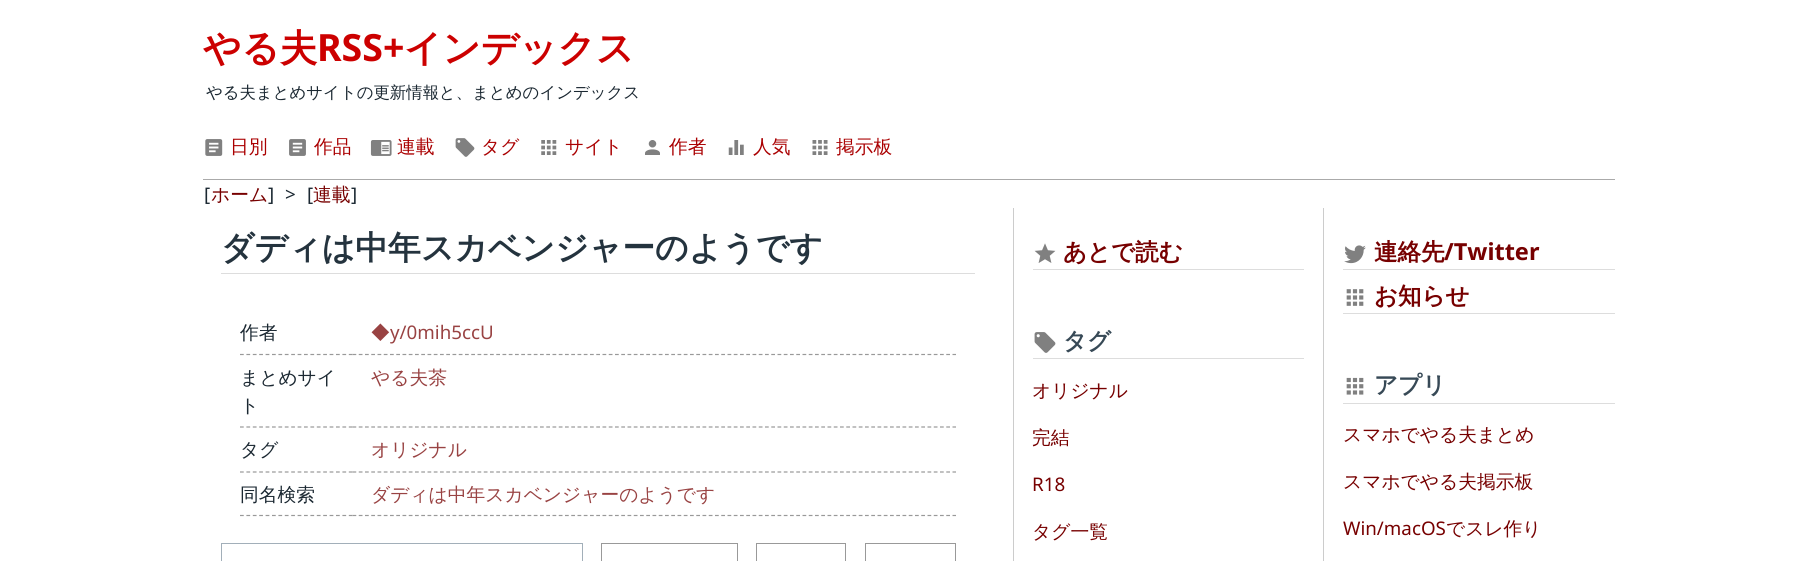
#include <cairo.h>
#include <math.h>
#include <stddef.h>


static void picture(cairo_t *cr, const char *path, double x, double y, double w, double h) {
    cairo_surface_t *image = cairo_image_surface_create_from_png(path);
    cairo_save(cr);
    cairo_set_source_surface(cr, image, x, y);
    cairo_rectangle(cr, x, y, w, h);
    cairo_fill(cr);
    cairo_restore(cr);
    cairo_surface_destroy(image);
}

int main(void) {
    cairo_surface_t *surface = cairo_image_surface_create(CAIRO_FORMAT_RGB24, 1817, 561);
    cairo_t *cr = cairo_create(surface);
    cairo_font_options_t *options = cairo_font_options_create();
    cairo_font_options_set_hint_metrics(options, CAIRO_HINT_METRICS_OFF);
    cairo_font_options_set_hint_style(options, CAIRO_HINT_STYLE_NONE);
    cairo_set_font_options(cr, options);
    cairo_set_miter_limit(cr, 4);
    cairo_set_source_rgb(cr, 1, 1, 1);
    cairo_paint(cr);
    cairo_set_source_rgb(cr, 0.667, 0.667, 0.667);
    cairo_rectangle(cr, 203, 179, 1412, 1);
    cairo_fill(cr);
    cairo_select_font_face(cr, "WenQuanYi Zen Hei", CAIRO_FONT_SLANT_NORMAL, CAIRO_FONT_WEIGHT_BOLD);
    cairo_set_font_size(cr, 37.5);
    cairo_set_source_rgb(cr, 0.8, 0, 0);
    cairo_move_to(cr, 203, 61);
    cairo_show_text(cr, "やる夫");
    cairo_select_font_face(cr, "Noto Sans", CAIRO_FONT_SLANT_NORMAL, CAIRO_FONT_WEIGHT_BOLD);
    cairo_move_to(cr, 317, 61);
    cairo_show_text(cr, "RSS+");
    cairo_select_font_face(cr, "WenQuanYi Zen Hei", CAIRO_FONT_SLANT_NORMAL, CAIRO_FONT_WEIGHT_BOLD);
    cairo_move_to(cr, 404, 61);
    cairo_show_text(cr, "インデックス");
    cairo_select_font_face(cr, "WenQuanYi Zen Hei Medium", CAIRO_FONT_SLANT_NORMAL, CAIRO_FONT_WEIGHT_NORMAL);
    cairo_set_font_size(cr, 16.4);
    cairo_set_source_rgb(cr, 0.106, 0.157, 0.196);
    cairo_move_to(cr, 206, 98);
    cairo_show_text(cr, "やる夫まとめサイトの更新情報と、まとめのインデックス");
    picture(cr, "img1.png", 205, 139, 18, 17);
    cairo_set_font_size(cr, 18.75);
    cairo_set_source_rgb(cr, 0.667, 0, 0.004);
    cairo_move_to(cr, 230, 153);
    cairo_show_text(cr, "日別");
    picture(cr, "img2.png", 289, 139, 17, 17);
    cairo_move_to(cr, 314, 153);
    cairo_show_text(cr, "作品");
    picture(cr, "img3.png", 370, 140, 22, 16);
    cairo_move_to(cr, 397, 153);
    cairo_show_text(cr, "連載");
    picture(cr, "img4.png", 455, 138, 20, 19);
    cairo_move_to(cr, 481, 153);
    cairo_show_text(cr, "タグ");
    picture(cr, "img5.png", 541, 140, 16, 15);
    cairo_move_to(cr, 565, 153);
    cairo_show_text(cr, "サイト");
    picture(cr, "img6.png", 645, 140, 15, 15);
    cairo_move_to(cr, 669, 153);
    cairo_show_text(cr, "作者");
    picture(cr, "img7.png", 728, 140, 16, 15);
    cairo_move_to(cr, 753, 153);
    cairo_show_text(cr, "人気");
    picture(cr, "img8.png", 812, 140, 16, 15);
    cairo_move_to(cr, 836, 153);
    cairo_show_text(cr, "掲示板");
    cairo_select_font_face(cr, "Noto Sans", CAIRO_FONT_SLANT_NORMAL, CAIRO_FONT_WEIGHT_NORMAL);
    cairo_set_source_rgb(cr, 0.106, 0.157, 0.196);
    cairo_move_to(cr, 204, 201);
    cairo_show_text(cr, "[");
    cairo_select_font_face(cr, "WenQuanYi Zen Hei Medium", CAIRO_FONT_SLANT_NORMAL, CAIRO_FONT_WEIGHT_NORMAL);
    cairo_set_source_rgb(cr, 0.467, 0, 0);
    cairo_move_to(cr, 211, 201);
    cairo_show_text(cr, "ホーム");
    cairo_select_font_face(cr, "Noto Sans", CAIRO_FONT_SLANT_NORMAL, CAIRO_FONT_WEIGHT_NORMAL);
    cairo_set_source_rgb(cr, 0.106, 0.157, 0.196);
    cairo_move_to(cr, 268, 201);
    cairo_show_text(cr, "]");
    cairo_move_to(cr, 285, 201);
    cairo_show_text(cr, ">");
    cairo_move_to(cr, 307, 201);
    cairo_show_text(cr, "[");
    cairo_select_font_face(cr, "WenQuanYi Zen Hei Medium", CAIRO_FONT_SLANT_NORMAL, CAIRO_FONT_WEIGHT_NORMAL);
    cairo_set_source_rgb(cr, 0.467, 0, 0);
    cairo_move_to(cr, 313, 201);
    cairo_show_text(cr, "連載");
    cairo_select_font_face(cr, "Noto Sans", CAIRO_FONT_SLANT_NORMAL, CAIRO_FONT_WEIGHT_NORMAL);
    cairo_set_source_rgb(cr, 0.106, 0.157, 0.196);
    cairo_move_to(cr, 351, 201);
    cairo_show_text(cr, "]");
    cairo_set_source_rgb(cr, 0.867, 0.867, 0.867);
    cairo_rectangle(cr, 221, 273, 754, 1);
    cairo_fill(cr);
    cairo_select_font_face(cr, "WenQuanYi Zen Hei", CAIRO_FONT_SLANT_NORMAL, CAIRO_FONT_WEIGHT_BOLD);
    cairo_set_font_size(cr, 32.8);
    cairo_set_source_rgb(cr, 0.141, 0.2, 0.243);
    cairo_move_to(cr, 221, 259);
    cairo_show_text(cr, "ダディは中年スカベンジャーのようです");
    cairo_new_path(cr);
    cairo_move_to(cr, 240, 354.5);
    cairo_line_to(cr, 352.5, 354.5);
    cairo_set_source_rgb(cr, 0.6, 0.6, 0.6);
    cairo_set_line_width(cr, 1.2);
    cairo_set_dash(cr, (double[]){3.75, 2.65}, 2, 0);
    cairo_stroke(cr);
    cairo_select_font_face(cr, "WenQuanYi Zen Hei Medium", CAIRO_FONT_SLANT_NORMAL, CAIRO_FONT_WEIGHT_NORMAL);
    cairo_set_font_size(cr, 18.75);
    cairo_set_source_rgb(cr, 0.106, 0.157, 0.196);
    cairo_move_to(cr, 240, 339);
    cairo_show_text(cr, "作者");
    cairo_new_path(cr);
    cairo_move_to(cr, 352.5, 354.5);
    cairo_line_to(cr, 956, 354.5);
    cairo_set_source_rgb(cr, 0.6, 0.6, 0.6);
    cairo_set_dash(cr, (double[]){3.75, 2.5}, 2, 0);
    cairo_stroke(cr);
    cairo_set_source_rgb(cr, 0.6, 0.263, 0.263);
    cairo_move_to(cr, 371, 339);
    cairo_show_text(cr, "◆");
    cairo_select_font_face(cr, "Noto Sans", CAIRO_FONT_SLANT_NORMAL, CAIRO_FONT_WEIGHT_NORMAL);
    cairo_move_to(cr, 390, 339);
    cairo_show_text(cr, "y/0mih5ccU");
    cairo_new_path(cr);
    cairo_move_to(cr, 240, 427);
    cairo_line_to(cr, 352.5, 427);
    cairo_set_source_rgb(cr, 0.6, 0.6, 0.6);
    cairo_set_dash(cr, (double[]){3.75, 2.65}, 2, 0);
    cairo_stroke(cr);
    cairo_select_font_face(cr, "WenQuanYi Zen Hei Medium", CAIRO_FONT_SLANT_NORMAL, CAIRO_FONT_WEIGHT_NORMAL);
    cairo_set_source_rgb(cr, 0.106, 0.157, 0.196);
    cairo_move_to(cr, 240, 384);
    cairo_show_text(cr, "まとめサイ");
    cairo_move_to(cr, 240, 412);
    cairo_show_text(cr, "ト");
    cairo_new_path(cr);
    cairo_move_to(cr, 352.5, 427);
    cairo_line_to(cr, 956, 427);
    cairo_set_source_rgb(cr, 0.6, 0.6, 0.6);
    cairo_set_dash(cr, (double[]){3.75, 2.5}, 2, 0);
    cairo_stroke(cr);
    cairo_set_source_rgb(cr, 0.6, 0.263, 0.263);
    cairo_move_to(cr, 371, 384);
    cairo_show_text(cr, "やる夫茶");
    cairo_new_path(cr);
    cairo_move_to(cr, 240, 472);
    cairo_line_to(cr, 352.5, 472);
    cairo_set_source_rgb(cr, 0.6, 0.6, 0.6);
    cairo_set_dash(cr, (double[]){3.75, 2.65}, 2, 0);
    cairo_stroke(cr);
    cairo_set_source_rgb(cr, 0.106, 0.157, 0.196);
    cairo_move_to(cr, 240, 456);
    cairo_show_text(cr, "タグ");
    cairo_new_path(cr);
    cairo_move_to(cr, 352.5, 472);
    cairo_line_to(cr, 956, 472);
    cairo_set_source_rgb(cr, 0.6, 0.6, 0.6);
    cairo_set_dash(cr, (double[]){3.75, 2.5}, 2, 0);
    cairo_stroke(cr);
    cairo_set_source_rgb(cr, 0.6, 0.263, 0.263);
    cairo_move_to(cr, 371, 456);
    cairo_show_text(cr, "オリジナル");
    cairo_new_path(cr);
    cairo_move_to(cr, 240, 515.5);
    cairo_line_to(cr, 352.5, 515.5);
    cairo_set_source_rgb(cr, 0.6, 0.6, 0.6);
    cairo_set_dash(cr, (double[]){3.75, 2.65}, 2, 0);
    cairo_stroke(cr);
    cairo_set_source_rgb(cr, 0.106, 0.157, 0.196);
    cairo_move_to(cr, 240, 501);
    cairo_show_text(cr, "同名検索");
    cairo_new_path(cr);
    cairo_move_to(cr, 352.5, 515.5);
    cairo_line_to(cr, 956, 515.5);
    cairo_set_source_rgb(cr, 0.6, 0.6, 0.6);
    cairo_set_dash(cr, (double[]){3.75, 2.5}, 2, 0);
    cairo_stroke(cr);
    cairo_set_source_rgb(cr, 0.6, 0.263, 0.263);
    cairo_move_to(cr, 371, 501);
    cairo_show_text(cr, "ダディは中年スカベンジャーのようです");
    cairo_rectangle(cr, 221.5, 543.5, 361, 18);
    cairo_set_source_rgb(cr, 0.635, 0.686, 0.725);
    cairo_set_line_width(cr, 1);
    cairo_set_dash(cr, NULL, 0, 0);
    cairo_stroke(cr);
    cairo_rectangle(cr, 601.5, 543.5, 136, 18);
    cairo_set_source_rgb(cr, 0.6, 0.6, 0.6);
    cairo_stroke(cr);
    cairo_rectangle(cr, 756.5, 543.5, 89, 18);
    cairo_stroke(cr);
    cairo_rectangle(cr, 865.5, 543.5, 90, 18);
    cairo_stroke(cr);
    cairo_set_source_rgb(cr, 0.8, 0.8, 0.8);
    cairo_rectangle(cr, 1013, 208, 1, 353);
    cairo_fill(cr);
    cairo_set_source_rgb(cr, 0.867, 0.867, 0.867);
    cairo_rectangle(cr, 1033, 269, 271, 1);
    cairo_fill(cr);
    picture(cr, "img9.png", 1034, 243, 22, 20);
    cairo_select_font_face(cr, "WenQuanYi Zen Hei", CAIRO_FONT_SLANT_NORMAL, CAIRO_FONT_WEIGHT_BOLD);
    cairo_set_font_size(cr, 23.5);
    cairo_set_source_rgb(cr, 0.467, 0, 0);
    cairo_move_to(cr, 1063, 260);
    cairo_show_text(cr, "あとで読む");
    cairo_set_source_rgb(cr, 0.867, 0.867, 0.867);
    cairo_rectangle(cr, 1033, 358, 271, 1);
    cairo_fill(cr);
    picture(cr, "img10.png", 1034, 332, 22, 21);
    cairo_set_source_rgb(cr, 0.216, 0.286, 0.337);
    cairo_move_to(cr, 1063, 349);
    cairo_show_text(cr, "タグ");
    cairo_select_font_face(cr, "WenQuanYi Zen Hei Medium", CAIRO_FONT_SLANT_NORMAL, CAIRO_FONT_WEIGHT_NORMAL);
    cairo_set_font_size(cr, 18.75);
    cairo_set_source_rgb(cr, 0.467, 0, 0);
    cairo_move_to(cr, 1032, 397);
    cairo_show_text(cr, "オリジナル");
    cairo_move_to(cr, 1032, 444);
    cairo_show_text(cr, "完結");
    cairo_select_font_face(cr, "Noto Sans", CAIRO_FONT_SLANT_NORMAL, CAIRO_FONT_WEIGHT_NORMAL);
    cairo_move_to(cr, 1032, 491);
    cairo_show_text(cr, "R18");
    cairo_select_font_face(cr, "WenQuanYi Zen Hei Medium", CAIRO_FONT_SLANT_NORMAL, CAIRO_FONT_WEIGHT_NORMAL);
    cairo_move_to(cr, 1032, 538);
    cairo_show_text(cr, "タグ一覧");
    cairo_set_source_rgb(cr, 0.8, 0.8, 0.8);
    cairo_rectangle(cr, 1323, 208, 1, 353);
    cairo_fill(cr);
    cairo_set_source_rgb(cr, 0.867, 0.867, 0.867);
    cairo_rectangle(cr, 1343, 269, 272, 1);
    cairo_fill(cr);
    picture(cr, "img11.png", 1344, 245, 22, 19);
    cairo_select_font_face(cr, "WenQuanYi Zen Hei", CAIRO_FONT_SLANT_NORMAL, CAIRO_FONT_WEIGHT_BOLD);
    cairo_set_font_size(cr, 23.5);
    cairo_set_source_rgb(cr, 0.467, 0, 0);
    cairo_move_to(cr, 1374, 260);
    cairo_show_text(cr, "連絡先");
    cairo_select_font_face(cr, "Noto Sans", CAIRO_FONT_SLANT_NORMAL, CAIRO_FONT_WEIGHT_BOLD);
    cairo_move_to(cr, 1444, 260);
    cairo_show_text(cr, "/Twitter");
    cairo_set_source_rgb(cr, 0.867, 0.867, 0.867);
    cairo_rectangle(cr, 1343, 313, 272, 1);
    cairo_fill(cr);
    picture(cr, "img12.png", 1346, 289, 18, 17);
    cairo_select_font_face(cr, "WenQuanYi Zen Hei", CAIRO_FONT_SLANT_NORMAL, CAIRO_FONT_WEIGHT_BOLD);
    cairo_set_source_rgb(cr, 0.467, 0, 0);
    cairo_move_to(cr, 1374, 304);
    cairo_show_text(cr, "お知らせ");
    cairo_set_source_rgb(cr, 0.867, 0.867, 0.867);
    cairo_rectangle(cr, 1343, 403, 272, 1);
    cairo_fill(cr);
    picture(cr, "img13.png", 1346, 377, 18, 18);
    cairo_set_source_rgb(cr, 0.216, 0.286, 0.337);
    cairo_move_to(cr, 1374, 393);
    cairo_show_text(cr, "アプリ");
    cairo_select_font_face(cr, "WenQuanYi Zen Hei Medium", CAIRO_FONT_SLANT_NORMAL, CAIRO_FONT_WEIGHT_NORMAL);
    cairo_set_font_size(cr, 18.75);
    cairo_set_source_rgb(cr, 0.467, 0, 0);
    cairo_move_to(cr, 1343, 441);
    cairo_show_text(cr, "スマホでやる夫まとめ");
    cairo_move_to(cr, 1343, 488);
    cairo_show_text(cr, "スマホでやる夫掲示板");
    cairo_select_font_face(cr, "Noto Sans", CAIRO_FONT_SLANT_NORMAL, CAIRO_FONT_WEIGHT_NORMAL);
    cairo_move_to(cr, 1343, 535);
    cairo_show_text(cr, "Win/macOS");
    cairo_select_font_face(cr, "WenQuanYi Zen Hei Medium", CAIRO_FONT_SLANT_NORMAL, CAIRO_FONT_WEIGHT_NORMAL);
    cairo_move_to(cr, 1446, 535);
    cairo_show_text(cr, "でスレ作り");
    cairo_surface_write_to_png(surface, "page.png");
    cairo_font_options_destroy(options);
    cairo_destroy(cr);
    cairo_surface_destroy(surface);
    return 0;
}
